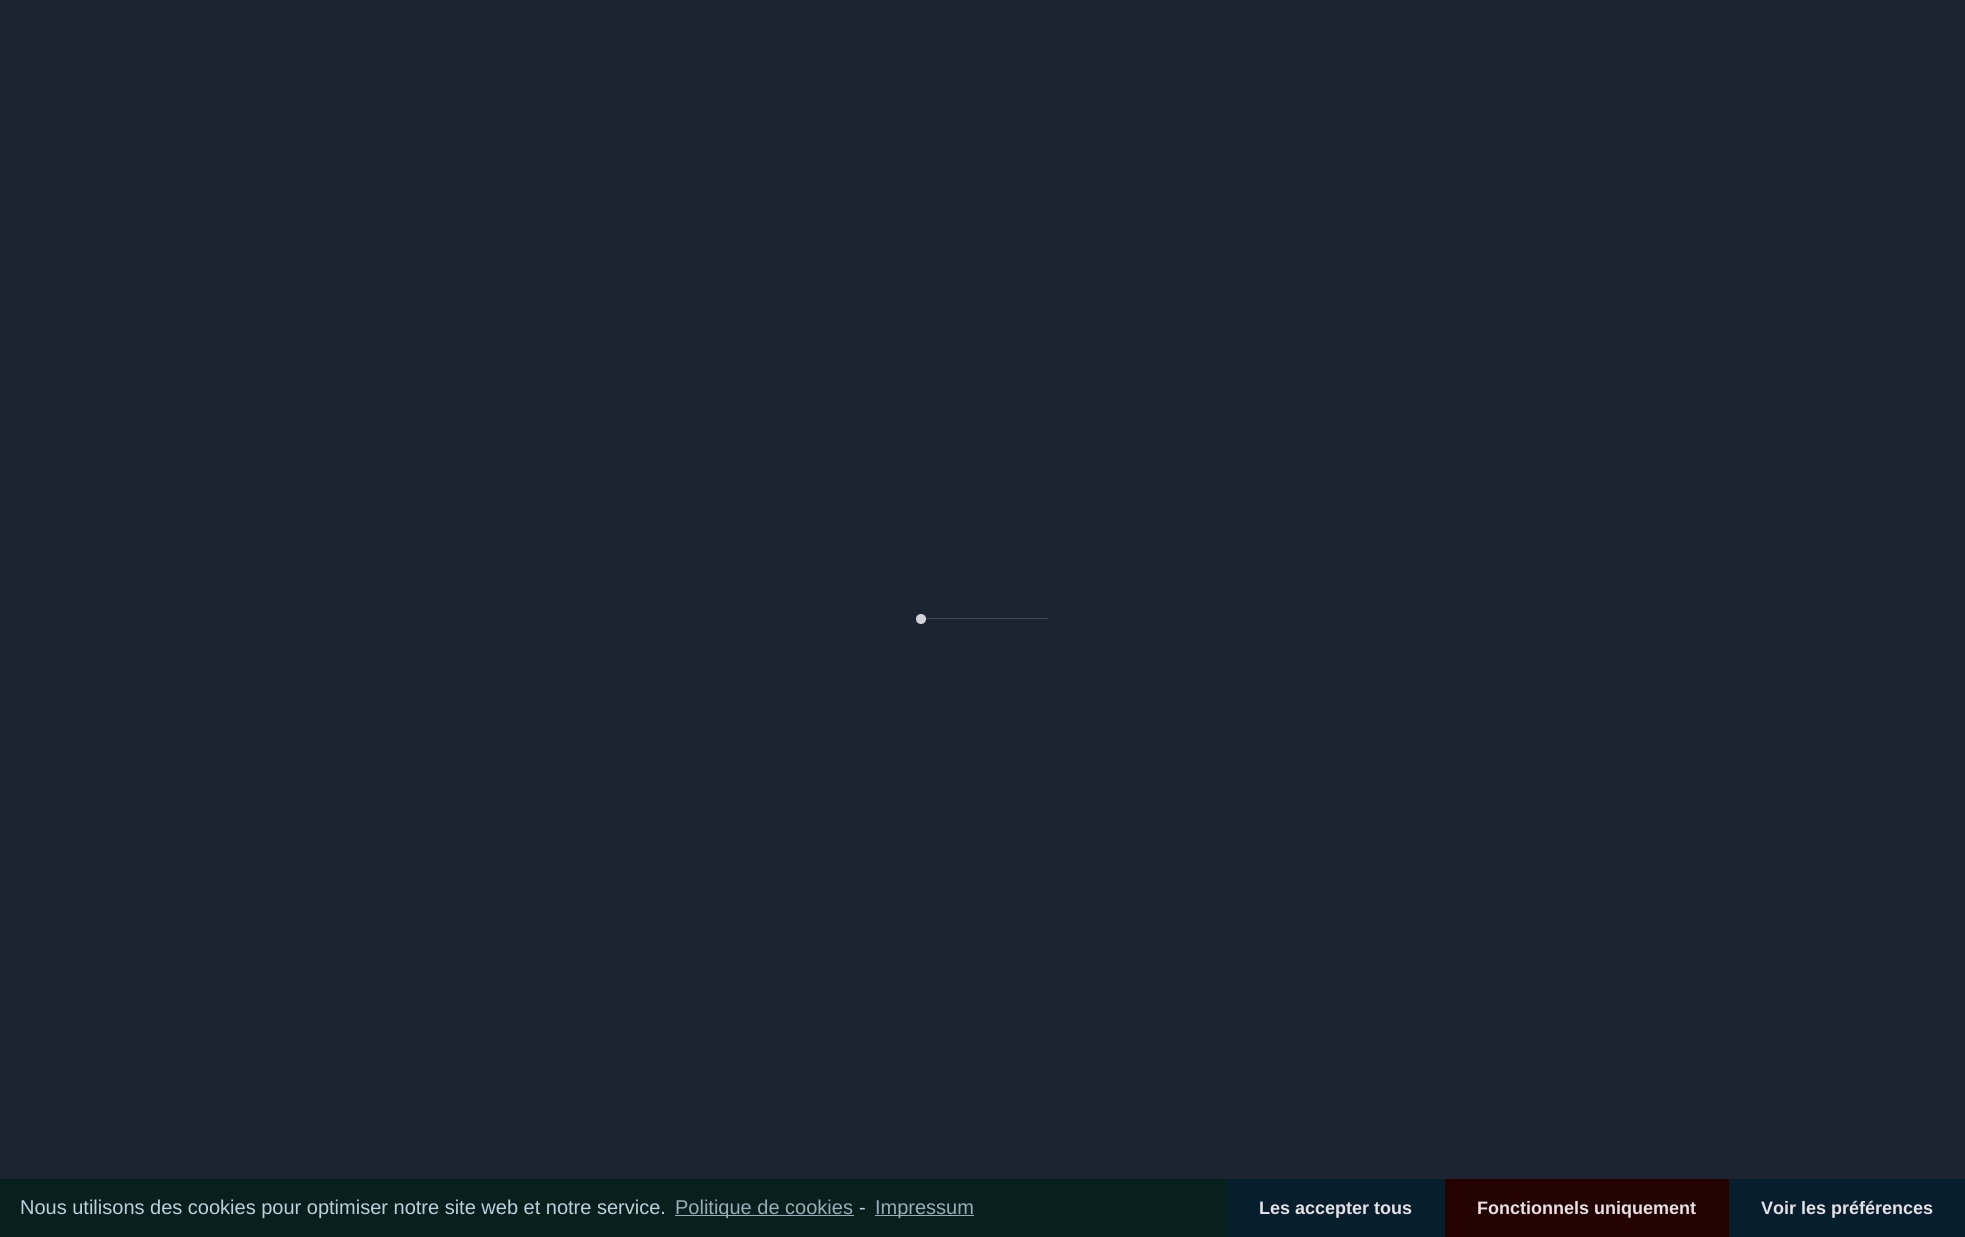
#include <cairo.h>
#include <math.h>
#include <stddef.h>


int main(void) {
    cairo_surface_t *surface = cairo_image_surface_create(CAIRO_FORMAT_RGB24, 1965, 1237);
    cairo_t *cr = cairo_create(surface);
    cairo_font_options_t *options = cairo_font_options_create();
    cairo_font_options_set_hint_metrics(options, CAIRO_HINT_METRICS_OFF);
    cairo_font_options_set_hint_style(options, CAIRO_HINT_STYLE_NONE);
    cairo_set_font_options(cr, options);
    cairo_set_miter_limit(cr, 4);
    cairo_set_source_rgb(cr, 0.106, 0.141, 0.188);
    cairo_paint(cr);
    cairo_set_source_rgb(cr, 0.255, 0.286, 0.325);
    cairo_rectangle(cr, 916, 618, 132, 1);
    cairo_fill(cr);
    cairo_set_source_rgb(cr, 0.82, 0.827, 0.839);
    cairo_arc(cr, 921, 619, 5, 0, 2 * M_PI);
    cairo_fill(cr);
    cairo_set_source_rgb(cr, 0.031, 0.122, 0.114);
    cairo_rectangle(cr, 0, 1179, 1228, 58);
    cairo_fill(cr);
    cairo_select_font_face(cr, "Liberation Sans", CAIRO_FONT_SLANT_NORMAL, CAIRO_FONT_WEIGHT_NORMAL);
    cairo_set_font_size(cr, 20);
    cairo_set_source_rgb(cr, 0.725, 0.824, 0.863);
    cairo_move_to(cr, 20, 1214);
    cairo_show_text(cr, "Nous utilisons des cookies pour optimiser notre site web et notre service.");
    cairo_set_source_rgb(cr, 0.588, 0.682, 0.714);
    cairo_rectangle(cr, 675, 1215, 179, 1);
    cairo_fill(cr);
    cairo_move_to(cr, 675, 1214);
    cairo_show_text(cr, "Politique de cookies");
    cairo_set_source_rgb(cr, 0.725, 0.824, 0.863);
    cairo_move_to(cr, 859, 1214);
    cairo_show_text(cr, "-");
    cairo_set_source_rgb(cr, 0.588, 0.682, 0.714);
    cairo_rectangle(cr, 875, 1215, 99, 1);
    cairo_fill(cr);
    cairo_move_to(cr, 875, 1214);
    cairo_show_text(cr, "Impressum");
    cairo_set_source_rgb(cr, 0.031, 0.122, 0.176);
    cairo_rectangle(cr, 1228, 1179, 217, 58);
    cairo_fill(cr);
    cairo_select_font_face(cr, "Liberation Sans", CAIRO_FONT_SLANT_NORMAL, CAIRO_FONT_WEIGHT_BOLD);
    cairo_set_font_size(cr, 18);
    cairo_set_source_rgb(cr, 0.898, 0.882, 0.902);
    cairo_move_to(cr, 1259, 1214);
    cairo_show_text(cr, "Les accepter tous");
    cairo_set_source_rgb(cr, 0.137, 0.008, 0);
    cairo_rectangle(cr, 1445, 1179, 284, 58);
    cairo_fill(cr);
    cairo_set_source_rgb(cr, 0.898, 0.882, 0.902);
    cairo_move_to(cr, 1477, 1214);
    cairo_show_text(cr, "Fonctionnels uniquement");
    cairo_set_source_rgb(cr, 0.031, 0.118, 0.18);
    cairo_rectangle(cr, 1729, 1179, 236, 58);
    cairo_fill(cr);
    cairo_set_source_rgb(cr, 0.898, 0.882, 0.902);
    cairo_move_to(cr, 1761, 1214);
    cairo_show_text(cr, "Voir les préférences");
    cairo_surface_write_to_png(surface, "page.png");
    cairo_font_options_destroy(options);
    cairo_destroy(cr);
    cairo_surface_destroy(surface);
    return 0;
}
